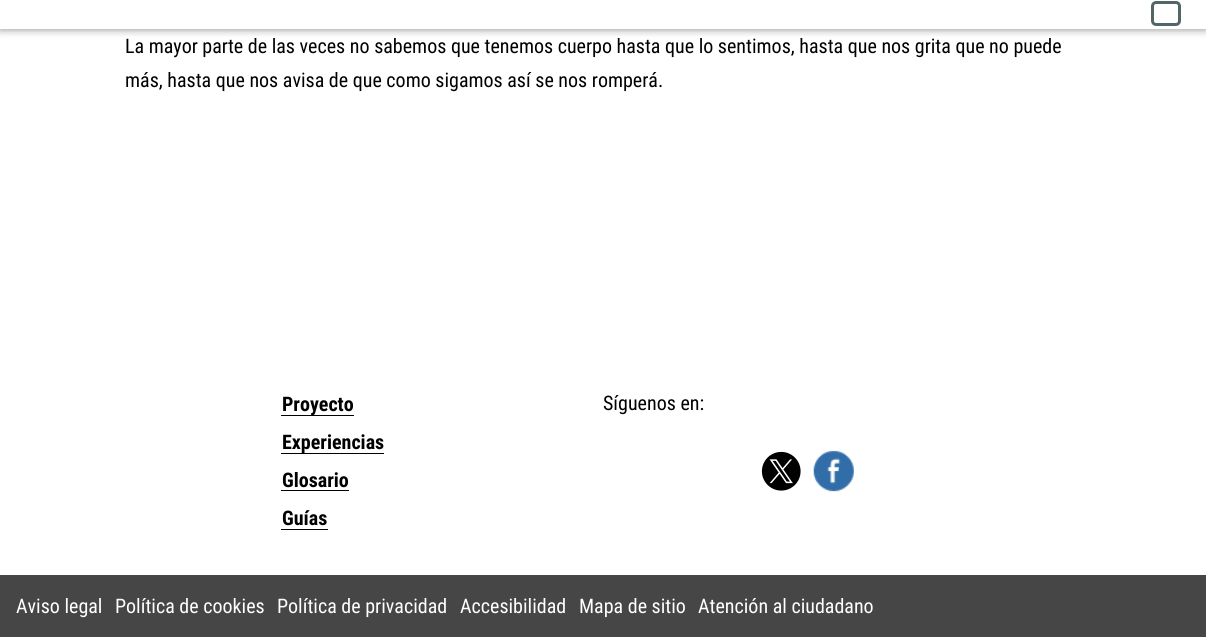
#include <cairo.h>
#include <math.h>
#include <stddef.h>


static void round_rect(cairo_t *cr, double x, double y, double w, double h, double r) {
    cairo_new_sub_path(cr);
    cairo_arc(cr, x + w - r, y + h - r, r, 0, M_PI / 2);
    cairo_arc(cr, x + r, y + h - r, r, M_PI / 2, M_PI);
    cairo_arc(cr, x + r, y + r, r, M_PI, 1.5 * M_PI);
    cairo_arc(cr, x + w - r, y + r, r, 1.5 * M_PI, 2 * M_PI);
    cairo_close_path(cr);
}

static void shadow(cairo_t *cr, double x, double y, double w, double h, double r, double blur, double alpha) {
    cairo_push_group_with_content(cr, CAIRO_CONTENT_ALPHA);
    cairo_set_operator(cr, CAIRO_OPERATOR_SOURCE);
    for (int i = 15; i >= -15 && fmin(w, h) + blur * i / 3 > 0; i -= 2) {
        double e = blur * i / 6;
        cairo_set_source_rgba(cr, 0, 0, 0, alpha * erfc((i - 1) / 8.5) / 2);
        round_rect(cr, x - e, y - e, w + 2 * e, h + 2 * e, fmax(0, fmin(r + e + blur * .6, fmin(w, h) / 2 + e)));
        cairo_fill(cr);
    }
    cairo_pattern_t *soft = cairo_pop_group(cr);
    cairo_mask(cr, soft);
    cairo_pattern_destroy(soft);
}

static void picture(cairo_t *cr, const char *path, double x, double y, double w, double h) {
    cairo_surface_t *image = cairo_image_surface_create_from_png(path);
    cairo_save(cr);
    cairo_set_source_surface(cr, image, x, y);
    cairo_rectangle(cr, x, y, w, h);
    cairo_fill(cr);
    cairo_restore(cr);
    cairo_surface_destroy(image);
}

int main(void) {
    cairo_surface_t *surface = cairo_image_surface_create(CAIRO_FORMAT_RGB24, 1206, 637);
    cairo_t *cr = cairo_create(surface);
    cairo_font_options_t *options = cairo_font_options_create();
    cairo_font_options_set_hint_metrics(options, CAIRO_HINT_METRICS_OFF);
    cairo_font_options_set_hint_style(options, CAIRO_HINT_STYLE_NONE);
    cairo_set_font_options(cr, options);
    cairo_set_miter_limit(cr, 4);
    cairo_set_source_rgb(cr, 1, 1, 1);
    cairo_paint(cr);
    cairo_set_source_rgb(cr, 0, 0, 0);
    shadow(cr, 0, 1, 1206, 29, 0, 4, 0.4);
    cairo_set_source_rgb(cr, 1, 1, 1);
    cairo_rectangle(cr, 0, 0, 1206, 29);
    cairo_fill(cr);
    round_rect(cr, 1152.5, 2.5, 27, 22, 3.5);
    cairo_set_source_rgb(cr, 0.322, 0.4, 0.408);
    cairo_set_line_width(cr, 3);
    cairo_stroke(cr);
    cairo_select_font_face(cr, "Roboto Condensed", CAIRO_FONT_SLANT_NORMAL, CAIRO_FONT_WEIGHT_NORMAL);
    cairo_set_font_size(cr, 20);
    cairo_set_source_rgb(cr, 0, 0, 0);
    cairo_move_to(cr, 125, 53);
    cairo_show_text(cr, "La mayor parte de las veces no sabemos que tenemos cuerpo hasta que lo sentimos, hasta que nos grita que no puede");
    cairo_move_to(cr, 125, 87);
    cairo_show_text(cr, "más, hasta que nos avisa de que como sigamos así se nos romperá.");
    cairo_rectangle(cr, 281, 415, 73, 1);
    cairo_fill(cr);
    cairo_select_font_face(cr, "Roboto Condensed", CAIRO_FONT_SLANT_NORMAL, CAIRO_FONT_WEIGHT_BOLD);
    cairo_move_to(cr, 282, 411);
    cairo_show_text(cr, "Proyecto");
    cairo_rectangle(cr, 281, 453, 103, 1);
    cairo_fill(cr);
    cairo_move_to(cr, 282, 449);
    cairo_show_text(cr, "Experiencias");
    cairo_move_to(cr, 282, 487);
    cairo_show_text(cr, "Glosario");
    cairo_rectangle(cr, 281, 490, 68, 1);
    cairo_fill(cr);
    cairo_move_to(cr, 282, 525);
    cairo_show_text(cr, "Guías");
    cairo_rectangle(cr, 281, 529, 47, 1);
    cairo_fill(cr);
    cairo_select_font_face(cr, "Roboto Condensed", CAIRO_FONT_SLANT_NORMAL, CAIRO_FONT_WEIGHT_NORMAL);
    cairo_move_to(cr, 603, 410);
    cairo_show_text(cr, "Síguenos en:");
    picture(cr, "img1.png", 761, 451, 40, 40);
    picture(cr, "img2.png", 813, 450, 41, 42);
    cairo_set_source_rgb(cr, 0.275, 0.275, 0.275);
    cairo_rectangle(cr, 0, 575, 1206, 62);
    cairo_fill(cr);
    cairo_set_source_rgb(cr, 1, 1, 1);
    cairo_move_to(cr, 16, 613);
    cairo_show_text(cr, "Aviso legal");
    cairo_move_to(cr, 115, 613);
    cairo_show_text(cr, "Política de cookies");
    cairo_move_to(cr, 277, 613);
    cairo_show_text(cr, "Política de privacidad");
    cairo_move_to(cr, 460, 613);
    cairo_show_text(cr, "Accesibilidad");
    cairo_move_to(cr, 579, 613);
    cairo_show_text(cr, "Mapa de sitio");
    cairo_move_to(cr, 698, 613);
    cairo_show_text(cr, "Atención al ciudadano");
    cairo_surface_write_to_png(surface, "page.png");
    cairo_font_options_destroy(options);
    cairo_destroy(cr);
    cairo_surface_destroy(surface);
    return 0;
}
